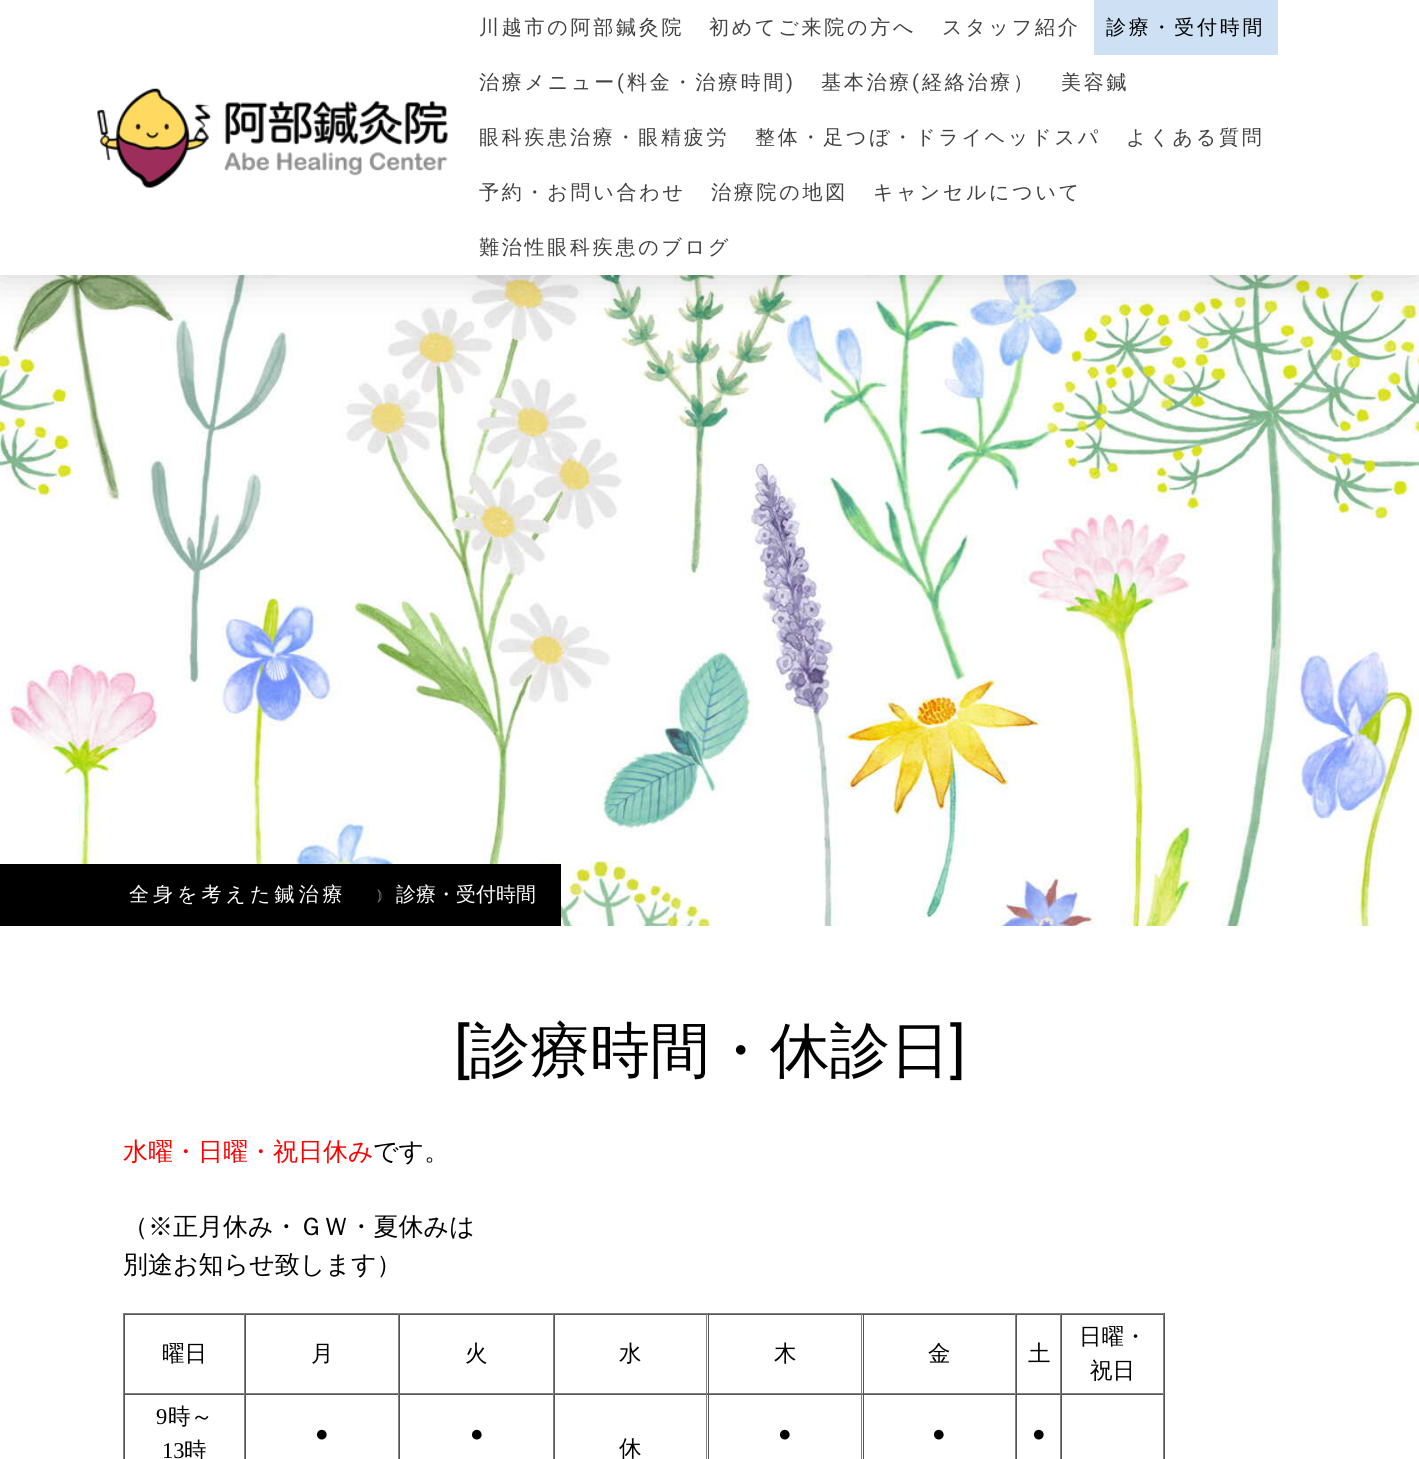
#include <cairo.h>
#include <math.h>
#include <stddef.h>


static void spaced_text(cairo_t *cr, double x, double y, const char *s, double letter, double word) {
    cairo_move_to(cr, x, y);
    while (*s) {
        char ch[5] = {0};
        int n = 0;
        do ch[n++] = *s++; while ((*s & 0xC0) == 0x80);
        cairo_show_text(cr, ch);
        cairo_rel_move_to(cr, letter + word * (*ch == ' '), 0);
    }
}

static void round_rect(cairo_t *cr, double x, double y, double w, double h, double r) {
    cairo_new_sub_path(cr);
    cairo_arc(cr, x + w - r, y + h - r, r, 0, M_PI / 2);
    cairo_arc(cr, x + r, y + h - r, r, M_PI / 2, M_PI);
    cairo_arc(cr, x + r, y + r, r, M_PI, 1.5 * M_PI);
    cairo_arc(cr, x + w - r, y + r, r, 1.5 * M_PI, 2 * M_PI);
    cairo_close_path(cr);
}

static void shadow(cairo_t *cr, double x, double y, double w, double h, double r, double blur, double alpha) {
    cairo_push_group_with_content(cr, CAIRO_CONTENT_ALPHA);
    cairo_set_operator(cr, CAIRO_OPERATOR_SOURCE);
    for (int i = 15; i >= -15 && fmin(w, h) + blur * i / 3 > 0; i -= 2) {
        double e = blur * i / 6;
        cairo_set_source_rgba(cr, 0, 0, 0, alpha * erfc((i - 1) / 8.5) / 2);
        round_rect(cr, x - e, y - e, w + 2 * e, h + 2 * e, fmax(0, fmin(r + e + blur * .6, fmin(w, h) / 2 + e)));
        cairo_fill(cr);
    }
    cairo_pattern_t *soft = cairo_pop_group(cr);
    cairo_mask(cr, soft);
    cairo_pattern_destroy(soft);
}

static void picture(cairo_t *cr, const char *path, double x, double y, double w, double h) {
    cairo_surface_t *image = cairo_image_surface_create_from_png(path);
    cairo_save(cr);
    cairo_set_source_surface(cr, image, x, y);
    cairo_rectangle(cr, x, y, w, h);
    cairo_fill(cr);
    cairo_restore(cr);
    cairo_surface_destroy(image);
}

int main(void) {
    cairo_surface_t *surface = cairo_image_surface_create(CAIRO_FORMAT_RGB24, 1419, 1459);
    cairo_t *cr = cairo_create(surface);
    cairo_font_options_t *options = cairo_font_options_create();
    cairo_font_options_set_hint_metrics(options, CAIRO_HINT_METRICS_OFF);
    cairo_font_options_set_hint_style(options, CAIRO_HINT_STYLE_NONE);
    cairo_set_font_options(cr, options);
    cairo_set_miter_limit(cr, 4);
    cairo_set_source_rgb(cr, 1, 1, 1);
    cairo_paint(cr);
    picture(cr, "img2.png", 0, 275, 1419, 651);
    cairo_set_source_rgb(cr, 0, 0, 0);
    shadow(cr, 0, 0, 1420, 275, 0, 19, 0.2);
    cairo_set_source_rgb(cr, 1, 1, 1);
    cairo_rectangle(cr, 0, 0, 1419, 275);
    cairo_fill(cr);
    picture(cr, "img1.png", 97, 88, 351, 100);
    cairo_select_font_face(cr, "WenQuanYi Zen Hei Medium", CAIRO_FONT_SLANT_NORMAL, CAIRO_FONT_WEIGHT_NORMAL);
    cairo_set_font_size(cr, 20);
    cairo_set_source_rgb(cr, 0.251, 0.251, 0.251);
    spaced_text(cr, 479, 34, "川越市の阿部鍼灸院", 2.75, 0);
    spaced_text(cr, 709, 34, "初めてご来院の方へ", 2.75, 0);
    spaced_text(cr, 942, 34, "スタッフ紹介", 2.75, 0);
    cairo_set_source_rgb(cr, 0.808, 0.882, 0.957);
    cairo_rectangle(cr, 1094, 0, 184, 55);
    cairo_fill(cr);
    cairo_set_source_rgb(cr, 0, 0, 0);
    spaced_text(cr, 1106, 34, "診療・受付時間", 2.75, 0);
    cairo_set_source_rgb(cr, 0.251, 0.251, 0.251);
    spaced_text(cr, 479, 89, "治療メニュー", 2.75, 0);
    cairo_select_font_face(cr, "Roboto", CAIRO_FONT_SLANT_NORMAL, CAIRO_FONT_WEIGHT_NORMAL);
    spaced_text(cr, 617, 89, "(", 2.75, 0);
    cairo_select_font_face(cr, "WenQuanYi Zen Hei Medium", CAIRO_FONT_SLANT_NORMAL, CAIRO_FONT_WEIGHT_NORMAL);
    spaced_text(cr, 627, 89, "料金・治療時間", 2.75, 0);
    cairo_select_font_face(cr, "Roboto", CAIRO_FONT_SLANT_NORMAL, CAIRO_FONT_WEIGHT_NORMAL);
    spaced_text(cr, 786, 89, ")", 2.75, 0);
    cairo_select_font_face(cr, "WenQuanYi Zen Hei Medium", CAIRO_FONT_SLANT_NORMAL, CAIRO_FONT_WEIGHT_NORMAL);
    spaced_text(cr, 821, 89, "基本治療", 2.75, 0);
    cairo_select_font_face(cr, "Roboto", CAIRO_FONT_SLANT_NORMAL, CAIRO_FONT_WEIGHT_NORMAL);
    spaced_text(cr, 912, 89, "(", 2.75, 0);
    cairo_select_font_face(cr, "WenQuanYi Zen Hei Medium", CAIRO_FONT_SLANT_NORMAL, CAIRO_FONT_WEIGHT_NORMAL);
    spaced_text(cr, 922, 89, "経絡治療）", 2.75, 0);
    spaced_text(cr, 1061, 89, "美容鍼", 2.75, 0);
    spaced_text(cr, 479, 144, "眼科疾患治療・眼精疲労", 2.75, 0);
    spaced_text(cr, 755, 144, "整体・足つぼ・ドライヘッドスパ", 2.75, 0);
    spaced_text(cr, 1126, 144, "よくある質問", 2.75, 0);
    spaced_text(cr, 479, 199, "予約・お問い合わせ", 2.75, 0);
    spaced_text(cr, 711, 199, "治療院の地図", 2.75, 0);
    spaced_text(cr, 873, 199, "キャンセルについて", 2.75, 0);
    spaced_text(cr, 479, 254, "難治性眼科疾患のブログ", 2.75, 0);
    cairo_set_source_rgb(cr, 0, 0, 0);
    cairo_rectangle(cr, 0, 864, 561, 62);
    cairo_fill(cr);
    cairo_set_source_rgb(cr, 1, 1, 1);
    spaced_text(cr, 129, 901, "全身を考えた鍼治療", 4, 0);
    cairo_select_font_face(cr, "FreeSerif", CAIRO_FONT_SLANT_NORMAL, CAIRO_FONT_WEIGHT_NORMAL);
    cairo_set_font_size(cr, 16);
    cairo_set_source_rgb(cr, 0.502, 0.502, 0.502);
    cairo_move_to(cr, 377, 900);
    cairo_show_text(cr, "⦆");
    cairo_select_font_face(cr, "WenQuanYi Zen Hei Medium", CAIRO_FONT_SLANT_NORMAL, CAIRO_FONT_WEIGHT_NORMAL);
    cairo_set_font_size(cr, 20);
    cairo_set_source_rgb(cr, 1, 1, 1);
    cairo_move_to(cr, 396, 901);
    cairo_show_text(cr, "診療・受付時間");
    cairo_select_font_face(cr, "Roboto", CAIRO_FONT_SLANT_NORMAL, CAIRO_FONT_WEIGHT_NORMAL);
    cairo_set_font_size(cr, 60);
    cairo_set_source_rgb(cr, 0, 0, 0);
    cairo_move_to(cr, 454, 1071);
    cairo_show_text(cr, "[");
    cairo_select_font_face(cr, "WenQuanYi Zen Hei Medium", CAIRO_FONT_SLANT_NORMAL, CAIRO_FONT_WEIGHT_NORMAL);
    cairo_move_to(cr, 470, 1071);
    cairo_show_text(cr, "診療時間・休診日");
    cairo_select_font_face(cr, "Roboto", CAIRO_FONT_SLANT_NORMAL, CAIRO_FONT_WEIGHT_NORMAL);
    cairo_move_to(cr, 950, 1071);
    cairo_show_text(cr, "]");
    cairo_select_font_face(cr, "WenQuanYi Zen Hei Medium", CAIRO_FONT_SLANT_NORMAL, CAIRO_FONT_WEIGHT_NORMAL);
    cairo_set_font_size(cr, 25);
    cairo_set_source_rgb(cr, 1, 0, 0);
    cairo_move_to(cr, 123, 1160);
    cairo_show_text(cr, "水曜・日曜・祝日休み");
    cairo_set_source_rgb(cr, 0, 0, 0);
    cairo_move_to(cr, 373, 1160);
    cairo_show_text(cr, "です。");
    cairo_move_to(cr, 123, 1235);
    cairo_show_text(cr, "（※正月休み・ＧＷ・夏休みは");
    cairo_move_to(cr, 123, 1273);
    cairo_show_text(cr, "別途お知らせ致します）");
    cairo_set_source_rgb(cr, 0.502, 0.502, 0.502);
    cairo_rectangle(cr, 123, 1313, 1042, 1);
    cairo_fill(cr);
    cairo_set_source_rgb(cr, 0.333, 0.333, 0.333);
    cairo_rectangle(cr, 1164, 1313, 1, 146);
    cairo_fill(cr);
    cairo_set_source_rgb(cr, 0.502, 0.502, 0.502);
    cairo_rectangle(cr, 123, 1313, 1, 146);
    cairo_fill(cr);
    cairo_set_source_rgb(cr, 0.333, 0.333, 0.333);
    cairo_rectangle(cr, 124, 1314, 1040, 1);
    cairo_fill(cr);
    cairo_set_source_rgb(cr, 0.502, 0.502, 0.502);
    cairo_rectangle(cr, 244, 1314, 1, 80);
    cairo_fill(cr);
    cairo_rectangle(cr, 124, 1393, 121, 1);
    cairo_fill(cr);
    cairo_set_source_rgb(cr, 0.333, 0.333, 0.333);
    cairo_rectangle(cr, 124, 1314, 1, 80);
    cairo_fill(cr);
    cairo_set_font_size(cr, 22.5);
    cairo_set_source_rgb(cr, 0, 0, 0);
    cairo_move_to(cr, 162, 1361);
    cairo_show_text(cr, "曜日");
    cairo_set_source_rgb(cr, 0.502, 0.502, 0.502);
    cairo_rectangle(cr, 398, 1314, 1, 80);
    cairo_fill(cr);
    cairo_rectangle(cr, 245, 1393, 154, 1);
    cairo_fill(cr);
    cairo_set_source_rgb(cr, 0.333, 0.333, 0.333);
    cairo_rectangle(cr, 245, 1314, 1, 80);
    cairo_fill(cr);
    cairo_set_source_rgb(cr, 0, 0, 0);
    cairo_move_to(cr, 311, 1361);
    cairo_show_text(cr, "月");
    cairo_set_source_rgb(cr, 0.502, 0.502, 0.502);
    cairo_rectangle(cr, 553, 1314, 1, 80);
    cairo_fill(cr);
    cairo_rectangle(cr, 399, 1393, 155, 1);
    cairo_fill(cr);
    cairo_set_source_rgb(cr, 0.333, 0.333, 0.333);
    cairo_rectangle(cr, 399, 1314, 1, 80);
    cairo_fill(cr);
    cairo_set_source_rgb(cr, 0, 0, 0);
    cairo_move_to(cr, 465, 1361);
    cairo_show_text(cr, "火");
    cairo_set_source_rgb(cr, 0.502, 0.502, 0.502);
    cairo_rectangle(cr, 706, 1314, 1, 80);
    cairo_fill(cr);
    cairo_rectangle(cr, 554, 1393, 154, 1);
    cairo_fill(cr);
    cairo_set_source_rgb(cr, 0.333, 0.333, 0.333);
    cairo_rectangle(cr, 554, 1314, 1, 80);
    cairo_fill(cr);
    cairo_set_source_rgb(cr, 0, 0, 0);
    cairo_move_to(cr, 619, 1361);
    cairo_show_text(cr, "水");
    cairo_set_source_rgb(cr, 0.502, 0.502, 0.502);
    cairo_rectangle(cr, 861, 1314, 1, 80);
    cairo_fill(cr);
    cairo_rectangle(cr, 708, 1393, 155, 1);
    cairo_fill(cr);
    cairo_set_source_rgb(cr, 0.333, 0.333, 0.333);
    cairo_rectangle(cr, 708, 1314, 1, 80);
    cairo_fill(cr);
    cairo_set_source_rgb(cr, 0, 0, 0);
    cairo_move_to(cr, 774, 1361);
    cairo_show_text(cr, "木");
    cairo_set_source_rgb(cr, 0.502, 0.502, 0.502);
    cairo_rectangle(cr, 1015, 1314, 1, 80);
    cairo_fill(cr);
    cairo_rectangle(cr, 863, 1393, 153, 1);
    cairo_fill(cr);
    cairo_set_source_rgb(cr, 0.333, 0.333, 0.333);
    cairo_rectangle(cr, 863, 1314, 1, 80);
    cairo_fill(cr);
    cairo_set_source_rgb(cr, 0, 0, 0);
    cairo_move_to(cr, 928, 1361);
    cairo_show_text(cr, "金");
    cairo_set_source_rgb(cr, 0.502, 0.502, 0.502);
    cairo_rectangle(cr, 1060, 1314, 1, 80);
    cairo_fill(cr);
    cairo_rectangle(cr, 1016, 1393, 45, 1);
    cairo_fill(cr);
    cairo_set_source_rgb(cr, 0.333, 0.333, 0.333);
    cairo_rectangle(cr, 1016, 1314, 1, 80);
    cairo_fill(cr);
    cairo_set_source_rgb(cr, 0, 0, 0);
    cairo_move_to(cr, 1028, 1361);
    cairo_show_text(cr, "土");
    cairo_set_source_rgb(cr, 0.502, 0.502, 0.502);
    cairo_rectangle(cr, 1163, 1314, 1, 80);
    cairo_fill(cr);
    cairo_rectangle(cr, 1061, 1393, 103, 1);
    cairo_fill(cr);
    cairo_set_source_rgb(cr, 0.333, 0.333, 0.333);
    cairo_rectangle(cr, 1061, 1314, 1, 80);
    cairo_fill(cr);
    cairo_set_source_rgb(cr, 0, 0, 0);
    cairo_move_to(cr, 1079, 1344);
    cairo_show_text(cr, "日曜・");
    cairo_move_to(cr, 1090, 1378);
    cairo_show_text(cr, "祝日");
    cairo_set_source_rgb(cr, 0.333, 0.333, 0.333);
    cairo_rectangle(cr, 124, 1394, 1040, 1);
    cairo_fill(cr);
    cairo_set_source_rgb(cr, 0.502, 0.502, 0.502);
    cairo_rectangle(cr, 244, 1394, 1, 65);
    cairo_fill(cr);
    cairo_set_source_rgb(cr, 0.333, 0.333, 0.333);
    cairo_rectangle(cr, 124, 1394, 1, 65);
    cairo_fill(cr);
    cairo_select_font_face(cr, "Liberation Serif", CAIRO_FONT_SLANT_NORMAL, CAIRO_FONT_WEIGHT_NORMAL);
    cairo_set_source_rgb(cr, 0, 0, 0);
    cairo_move_to(cr, 156, 1424);
    cairo_show_text(cr, "9");
    cairo_select_font_face(cr, "WenQuanYi Zen Hei Medium", CAIRO_FONT_SLANT_NORMAL, CAIRO_FONT_WEIGHT_NORMAL);
    cairo_move_to(cr, 168, 1424);
    cairo_show_text(cr, "時～");
    cairo_select_font_face(cr, "Liberation Serif", CAIRO_FONT_SLANT_NORMAL, CAIRO_FONT_WEIGHT_NORMAL);
    cairo_move_to(cr, 162, 1458);
    cairo_show_text(cr, "13");
    cairo_select_font_face(cr, "WenQuanYi Zen Hei Medium", CAIRO_FONT_SLANT_NORMAL, CAIRO_FONT_WEIGHT_NORMAL);
    cairo_move_to(cr, 184, 1458);
    cairo_show_text(cr, "時");
    cairo_set_source_rgb(cr, 0.502, 0.502, 0.502);
    cairo_rectangle(cr, 398, 1394, 1, 65);
    cairo_fill(cr);
    cairo_set_source_rgb(cr, 0.333, 0.333, 0.333);
    cairo_rectangle(cr, 245, 1394, 1, 65);
    cairo_fill(cr);
    cairo_select_font_face(cr, "Liberation Serif", CAIRO_FONT_SLANT_NORMAL, CAIRO_FONT_WEIGHT_NORMAL);
    cairo_set_source_rgb(cr, 0, 0, 0);
    cairo_move_to(cr, 315, 1441);
    cairo_show_text(cr, "●");
    cairo_set_source_rgb(cr, 0.502, 0.502, 0.502);
    cairo_rectangle(cr, 553, 1394, 1, 65);
    cairo_fill(cr);
    cairo_set_source_rgb(cr, 0.333, 0.333, 0.333);
    cairo_rectangle(cr, 399, 1394, 1, 65);
    cairo_fill(cr);
    cairo_set_source_rgb(cr, 0, 0, 0);
    cairo_move_to(cr, 470, 1441);
    cairo_show_text(cr, "●");
    cairo_set_source_rgb(cr, 0.502, 0.502, 0.502);
    cairo_rectangle(cr, 861, 1394, 1, 65);
    cairo_fill(cr);
    cairo_set_source_rgb(cr, 0.333, 0.333, 0.333);
    cairo_rectangle(cr, 708, 1394, 1, 65);
    cairo_fill(cr);
    cairo_set_source_rgb(cr, 0, 0, 0);
    cairo_move_to(cr, 778, 1441);
    cairo_show_text(cr, "●");
    cairo_set_source_rgb(cr, 0.502, 0.502, 0.502);
    cairo_rectangle(cr, 1015, 1394, 1, 65);
    cairo_fill(cr);
    cairo_set_source_rgb(cr, 0.333, 0.333, 0.333);
    cairo_rectangle(cr, 863, 1394, 1, 65);
    cairo_fill(cr);
    cairo_set_source_rgb(cr, 0, 0, 0);
    cairo_move_to(cr, 932, 1441);
    cairo_show_text(cr, "●");
    cairo_set_source_rgb(cr, 0.502, 0.502, 0.502);
    cairo_rectangle(cr, 1060, 1394, 1, 65);
    cairo_fill(cr);
    cairo_set_source_rgb(cr, 0.333, 0.333, 0.333);
    cairo_rectangle(cr, 1016, 1394, 1, 65);
    cairo_fill(cr);
    cairo_set_source_rgb(cr, 0, 0, 0);
    cairo_move_to(cr, 1032, 1441);
    cairo_show_text(cr, "●");
    cairo_set_source_rgb(cr, 0.502, 0.502, 0.502);
    cairo_rectangle(cr, 1163, 1394, 1, 65);
    cairo_fill(cr);
    cairo_set_source_rgb(cr, 0.333, 0.333, 0.333);
    cairo_rectangle(cr, 1061, 1394, 1, 65);
    cairo_fill(cr);
    cairo_set_source_rgb(cr, 0.502, 0.502, 0.502);
    cairo_rectangle(cr, 706, 1394, 1, 65);
    cairo_fill(cr);
    cairo_set_source_rgb(cr, 0.333, 0.333, 0.333);
    cairo_rectangle(cr, 554, 1394, 1, 65);
    cairo_fill(cr);
    cairo_select_font_face(cr, "WenQuanYi Zen Hei Medium", CAIRO_FONT_SLANT_NORMAL, CAIRO_FONT_WEIGHT_NORMAL);
    cairo_set_source_rgb(cr, 0, 0, 0);
    cairo_move_to(cr, 619, 1456);
    cairo_show_text(cr, "休");
    cairo_surface_write_to_png(surface, "page.png");
    cairo_font_options_destroy(options);
    cairo_destroy(cr);
    cairo_surface_destroy(surface);
    return 0;
}
